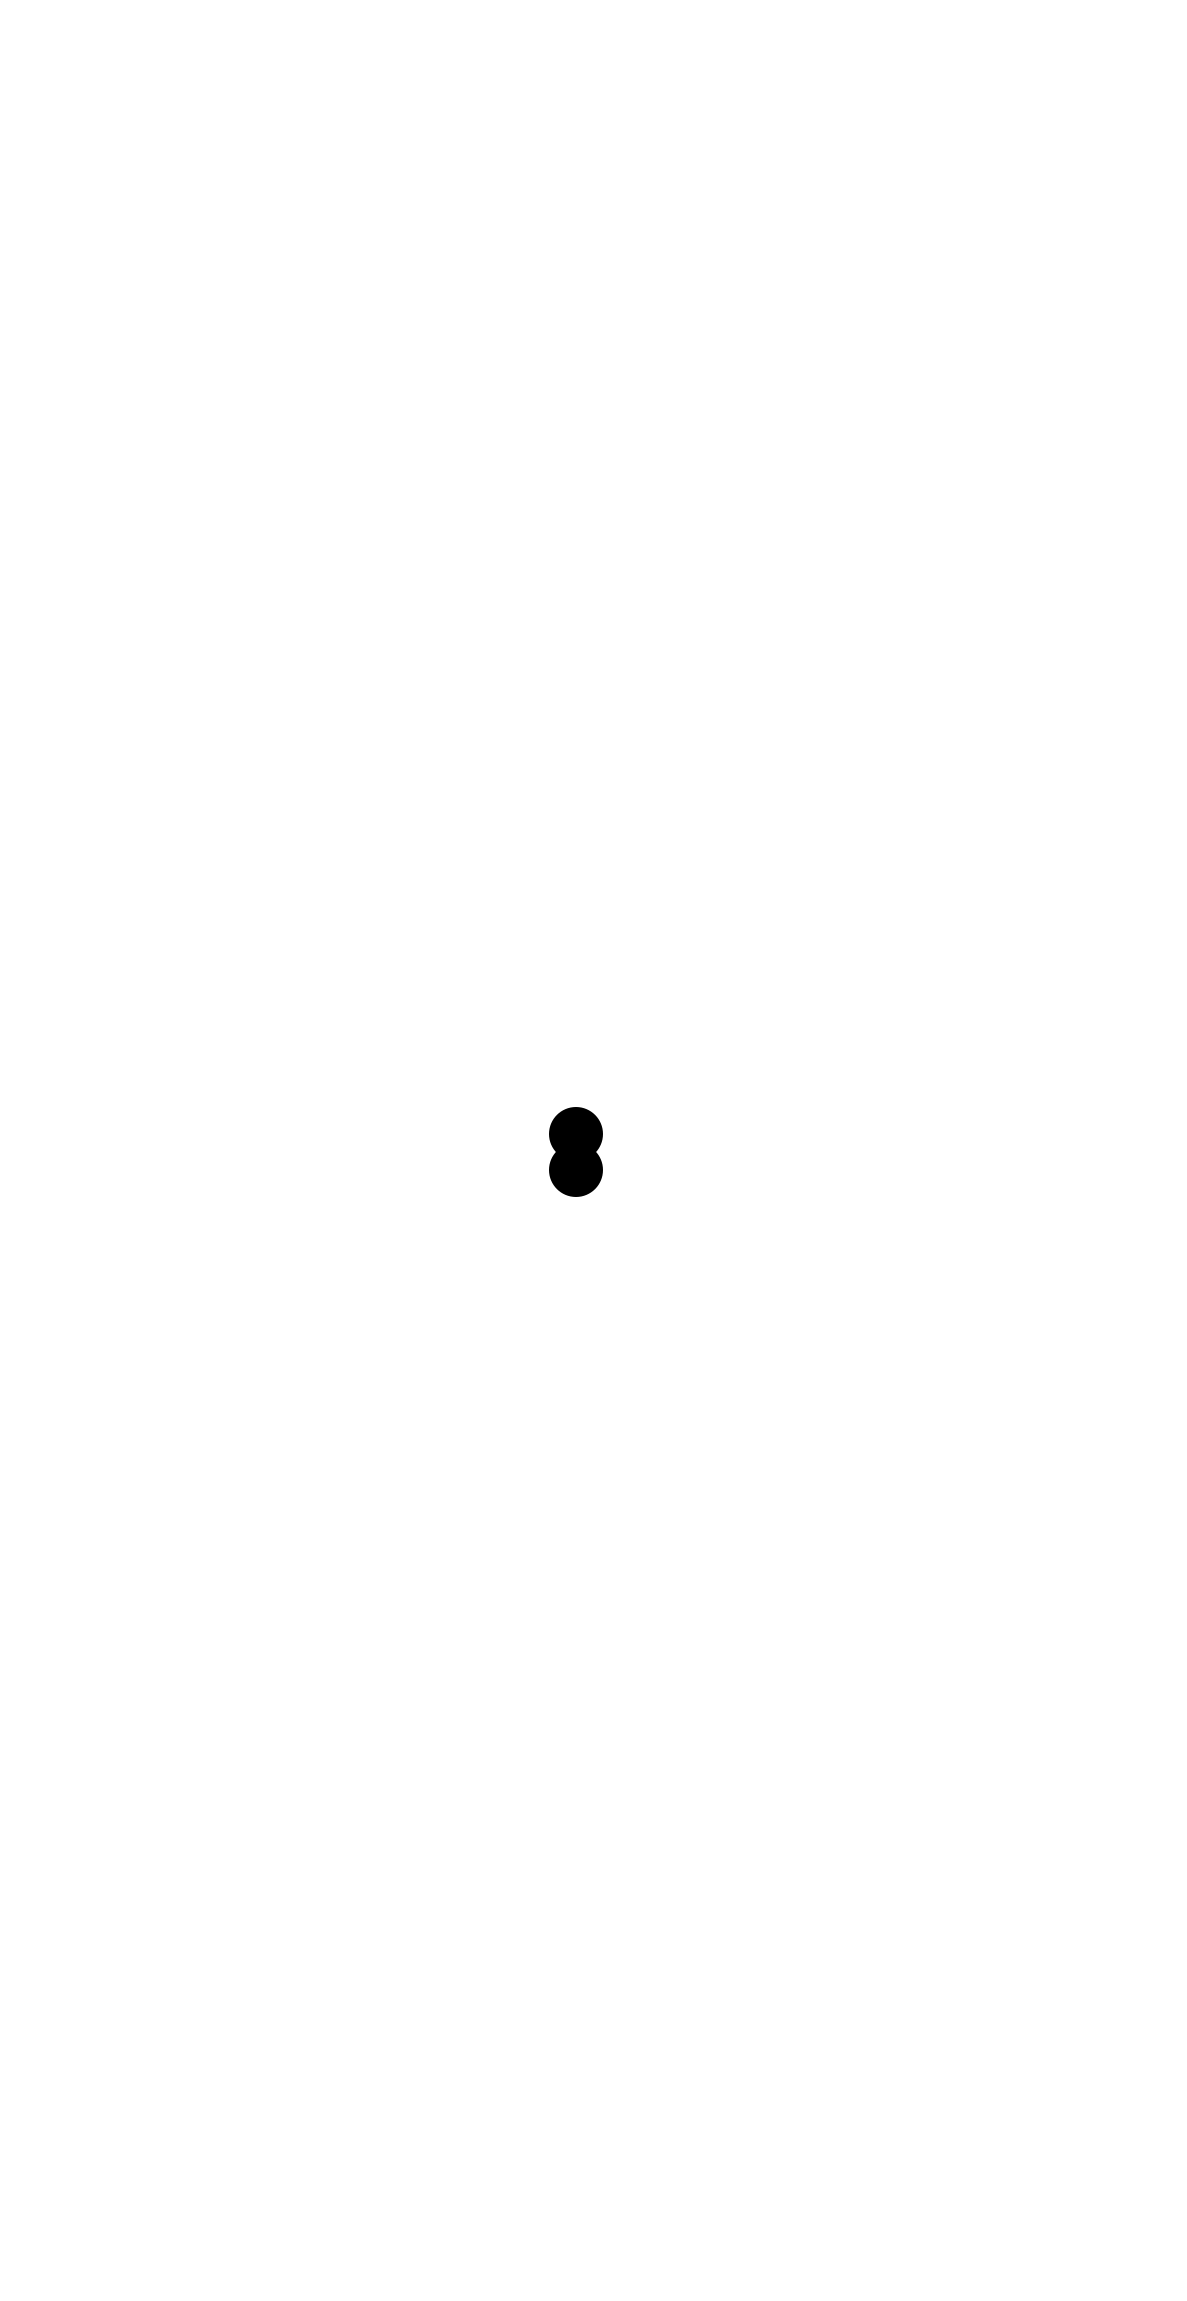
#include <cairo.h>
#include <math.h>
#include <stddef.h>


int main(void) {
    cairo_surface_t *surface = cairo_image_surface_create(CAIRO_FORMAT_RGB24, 1187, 2301);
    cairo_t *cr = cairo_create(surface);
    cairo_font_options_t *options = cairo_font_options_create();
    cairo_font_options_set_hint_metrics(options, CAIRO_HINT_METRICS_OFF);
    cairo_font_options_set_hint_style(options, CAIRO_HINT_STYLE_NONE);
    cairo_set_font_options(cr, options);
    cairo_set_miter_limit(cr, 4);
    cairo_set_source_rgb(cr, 1, 1, 1);
    cairo_paint(cr);
    cairo_set_source_rgb(cr, 0, 0, 0);
    cairo_arc(cr, 576, 1134, 27, 0, 2 * M_PI);
    cairo_fill(cr);
    cairo_arc(cr, 576, 1170, 27, 0, 2 * M_PI);
    cairo_fill(cr);
    cairo_surface_write_to_png(surface, "page.png");
    cairo_font_options_destroy(options);
    cairo_destroy(cr);
    cairo_surface_destroy(surface);
    return 0;
}
